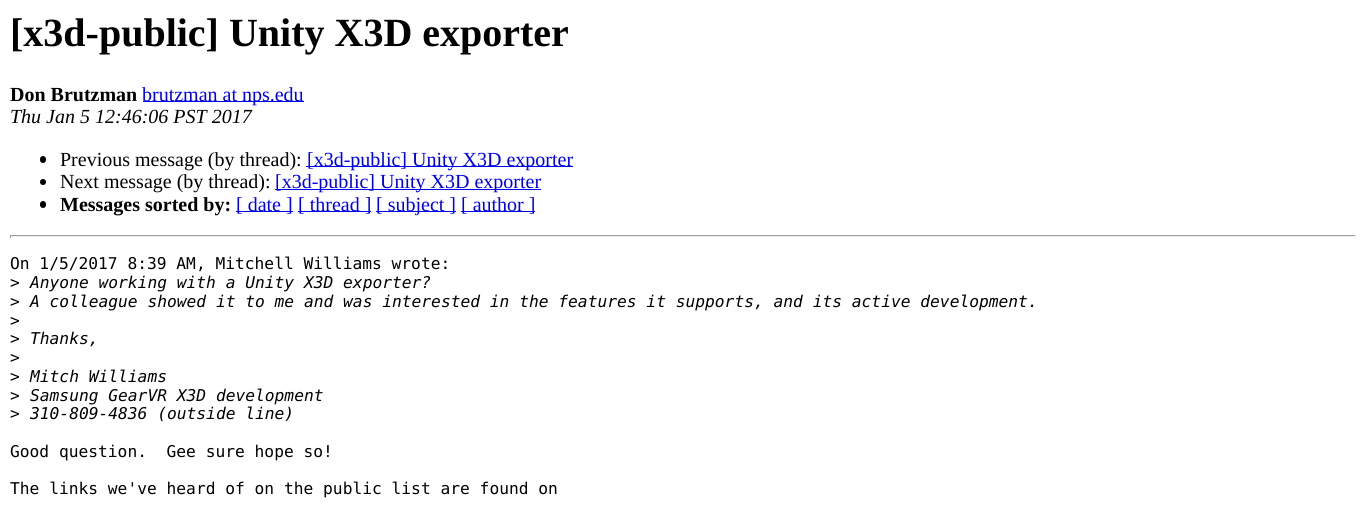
#include <cairo.h>
#include <math.h>
#include <stddef.h>


static void round_rect(cairo_t *cr, double x, double y, double w, double h, double r) {
    cairo_new_sub_path(cr);
    cairo_arc(cr, x + w - r, y + h - r, r, 0, M_PI / 2);
    cairo_arc(cr, x + r, y + h - r, r, M_PI / 2, M_PI);
    cairo_arc(cr, x + r, y + r, r, M_PI, 1.5 * M_PI);
    cairo_arc(cr, x + w - r, y + r, r, 1.5 * M_PI, 2 * M_PI);
    cairo_close_path(cr);
}

int main(void) {
    cairo_surface_t *surface = cairo_image_surface_create(CAIRO_FORMAT_RGB24, 1366, 514);
    cairo_t *cr = cairo_create(surface);
    cairo_font_options_t *options = cairo_font_options_create();
    cairo_font_options_set_hint_metrics(options, CAIRO_HINT_METRICS_OFF);
    cairo_font_options_set_hint_style(options, CAIRO_HINT_STYLE_NONE);
    cairo_set_font_options(cr, options);
    cairo_set_miter_limit(cr, 4);
    cairo_set_source_rgb(cr, 1, 1, 1);
    cairo_paint(cr);
    cairo_select_font_face(cr, "Liberation Serif", CAIRO_FONT_SLANT_NORMAL, CAIRO_FONT_WEIGHT_BOLD);
    cairo_set_font_size(cr, 40);
    cairo_set_source_rgb(cr, 0, 0, 0);
    cairo_move_to(cr, 10, 46);
    cairo_show_text(cr, "[x3d-public] Unity X3D exporter");
    cairo_set_font_size(cr, 20);
    cairo_move_to(cr, 10, 101);
    cairo_show_text(cr, "Don Brutzman");
    cairo_set_source_rgb(cr, 0, 0, 0.933);
    cairo_rectangle(cr, 143, 101, 161, 1);
    cairo_fill(cr);
    cairo_select_font_face(cr, "Liberation Serif", CAIRO_FONT_SLANT_NORMAL, CAIRO_FONT_WEIGHT_NORMAL);
    cairo_move_to(cr, 142, 101);
    cairo_show_text(cr, "brutzman at nps.edu");
    cairo_select_font_face(cr, "Liberation Serif", CAIRO_FONT_SLANT_ITALIC, CAIRO_FONT_WEIGHT_NORMAL);
    cairo_set_source_rgb(cr, 0, 0, 0);
    cairo_move_to(cr, 10, 123);
    cairo_show_text(cr, "Thu Jan 5 12:46:06 PST 2017");
    round_rect(cr, 40, 156, 6, 7, 3);
    cairo_fill(cr);
    cairo_select_font_face(cr, "Liberation Serif", CAIRO_FONT_SLANT_NORMAL, CAIRO_FONT_WEIGHT_NORMAL);
    cairo_move_to(cr, 60, 166);
    cairo_show_text(cr, "Previous message (by thread):");
    cairo_set_source_rgb(cr, 0, 0, 0.933);
    cairo_rectangle(cr, 306, 166, 267, 1);
    cairo_fill(cr);
    cairo_move_to(cr, 307, 166);
    cairo_show_text(cr, "[x3d-public] Unity X3D exporter");
    cairo_set_source_rgb(cr, 0, 0, 0);
    cairo_new_path(cr);
    cairo_arc(cr, 43, 182, 3, 0, 2 * M_PI);
    cairo_fill(cr);
    cairo_move_to(cr, 60, 188);
    cairo_show_text(cr, "Next message (by thread):");
    cairo_set_source_rgb(cr, 0, 0, 0.933);
    cairo_rectangle(cr, 275, 189, 266, 1);
    cairo_fill(cr);
    cairo_move_to(cr, 275, 188);
    cairo_show_text(cr, "[x3d-public] Unity X3D exporter");
    cairo_set_source_rgb(cr, 0, 0, 0);
    round_rect(cr, 40, 201, 6, 7, 3);
    cairo_fill(cr);
    cairo_select_font_face(cr, "Liberation Serif", CAIRO_FONT_SLANT_NORMAL, CAIRO_FONT_WEIGHT_BOLD);
    cairo_move_to(cr, 60, 211);
    cairo_show_text(cr, "Messages sorted by:");
    cairo_set_source_rgb(cr, 0, 0, 0.933);
    cairo_rectangle(cr, 236, 211, 57, 1);
    cairo_fill(cr);
    cairo_select_font_face(cr, "Liberation Serif", CAIRO_FONT_SLANT_NORMAL, CAIRO_FONT_WEIGHT_NORMAL);
    cairo_move_to(cr, 236, 211);
    cairo_show_text(cr, "[ date ]");
    cairo_rectangle(cr, 298, 211, 73, 1);
    cairo_fill(cr);
    cairo_move_to(cr, 298, 211);
    cairo_show_text(cr, "[ thread ]");
    cairo_rectangle(cr, 376, 211, 80, 1);
    cairo_fill(cr);
    cairo_move_to(cr, 376, 211);
    cairo_show_text(cr, "[ subject ]");
    cairo_rectangle(cr, 461, 211, 74, 1);
    cairo_fill(cr);
    cairo_move_to(cr, 461, 211);
    cairo_show_text(cr, "[ author ]");
    cairo_set_source_rgb(cr, 0.624, 0.624, 0.624);
    cairo_rectangle(cr, 10, 235, 1346, 1);
    cairo_fill(cr);
    cairo_set_source_rgb(cr, 0.933, 0.933, 0.933);
    cairo_rectangle(cr, 1355, 235, 1, 3);
    cairo_fill(cr);
    cairo_rectangle(cr, 10, 236, 1346, 1);
    cairo_fill(cr);
    cairo_set_source_rgb(cr, 0.624, 0.624, 0.624);
    cairo_rectangle(cr, 10, 235, 1, 3);
    cairo_fill(cr);
    cairo_select_font_face(cr, "DejaVu Sans Mono", CAIRO_FONT_SLANT_NORMAL, CAIRO_FONT_WEIGHT_NORMAL);
    cairo_set_font_size(cr, 16.25);
    cairo_set_source_rgb(cr, 0, 0, 0);
    cairo_move_to(cr, 10, 269);
    cairo_show_text(cr, "On 1/5/2017 8:39 AM, Mitchell Williams wrote:");
    cairo_move_to(cr, 10, 288);
    cairo_show_text(cr, ">");
    cairo_select_font_face(cr, "DejaVu Sans Mono", CAIRO_FONT_SLANT_ITALIC, CAIRO_FONT_WEIGHT_NORMAL);
    cairo_move_to(cr, 30, 288);
    cairo_show_text(cr, "Anyone working with a Unity X3D exporter?");
    cairo_select_font_face(cr, "DejaVu Sans Mono", CAIRO_FONT_SLANT_NORMAL, CAIRO_FONT_WEIGHT_NORMAL);
    cairo_move_to(cr, 10, 307);
    cairo_show_text(cr, ">");
    cairo_select_font_face(cr, "DejaVu Sans Mono", CAIRO_FONT_SLANT_ITALIC, CAIRO_FONT_WEIGHT_NORMAL);
    cairo_move_to(cr, 30, 307);
    cairo_show_text(cr, "A colleague showed it to me and was interested in the features it supports, and its active development.");
    cairo_select_font_face(cr, "DejaVu Sans Mono", CAIRO_FONT_SLANT_NORMAL, CAIRO_FONT_WEIGHT_NORMAL);
    cairo_move_to(cr, 10, 326);
    cairo_show_text(cr, ">");
    cairo_move_to(cr, 10, 344);
    cairo_show_text(cr, ">");
    cairo_select_font_face(cr, "DejaVu Sans Mono", CAIRO_FONT_SLANT_ITALIC, CAIRO_FONT_WEIGHT_NORMAL);
    cairo_move_to(cr, 30, 344);
    cairo_show_text(cr, "Thanks,");
    cairo_select_font_face(cr, "DejaVu Sans Mono", CAIRO_FONT_SLANT_NORMAL, CAIRO_FONT_WEIGHT_NORMAL);
    cairo_move_to(cr, 10, 363);
    cairo_show_text(cr, ">");
    cairo_move_to(cr, 10, 382);
    cairo_show_text(cr, ">");
    cairo_select_font_face(cr, "DejaVu Sans Mono", CAIRO_FONT_SLANT_ITALIC, CAIRO_FONT_WEIGHT_NORMAL);
    cairo_move_to(cr, 30, 382);
    cairo_show_text(cr, "Mitch Williams");
    cairo_select_font_face(cr, "DejaVu Sans Mono", CAIRO_FONT_SLANT_NORMAL, CAIRO_FONT_WEIGHT_NORMAL);
    cairo_move_to(cr, 10, 401);
    cairo_show_text(cr, ">");
    cairo_select_font_face(cr, "DejaVu Sans Mono", CAIRO_FONT_SLANT_ITALIC, CAIRO_FONT_WEIGHT_NORMAL);
    cairo_move_to(cr, 30, 401);
    cairo_show_text(cr, "Samsung GearVR X3D development");
    cairo_select_font_face(cr, "DejaVu Sans Mono", CAIRO_FONT_SLANT_NORMAL, CAIRO_FONT_WEIGHT_NORMAL);
    cairo_move_to(cr, 10, 419);
    cairo_show_text(cr, ">");
    cairo_select_font_face(cr, "DejaVu Sans Mono", CAIRO_FONT_SLANT_ITALIC, CAIRO_FONT_WEIGHT_NORMAL);
    cairo_move_to(cr, 30, 419);
    cairo_show_text(cr, "310-809-4836 (outside line)");
    cairo_select_font_face(cr, "DejaVu Sans Mono", CAIRO_FONT_SLANT_NORMAL, CAIRO_FONT_WEIGHT_NORMAL);
    cairo_move_to(cr, 10, 457);
    cairo_show_text(cr, "Good question.  Gee sure hope so!");
    cairo_move_to(cr, 10, 494);
    cairo_show_text(cr, "The links we've heard of on the public list are found on");
    cairo_surface_write_to_png(surface, "page.png");
    cairo_font_options_destroy(options);
    cairo_destroy(cr);
    cairo_surface_destroy(surface);
    return 0;
}
